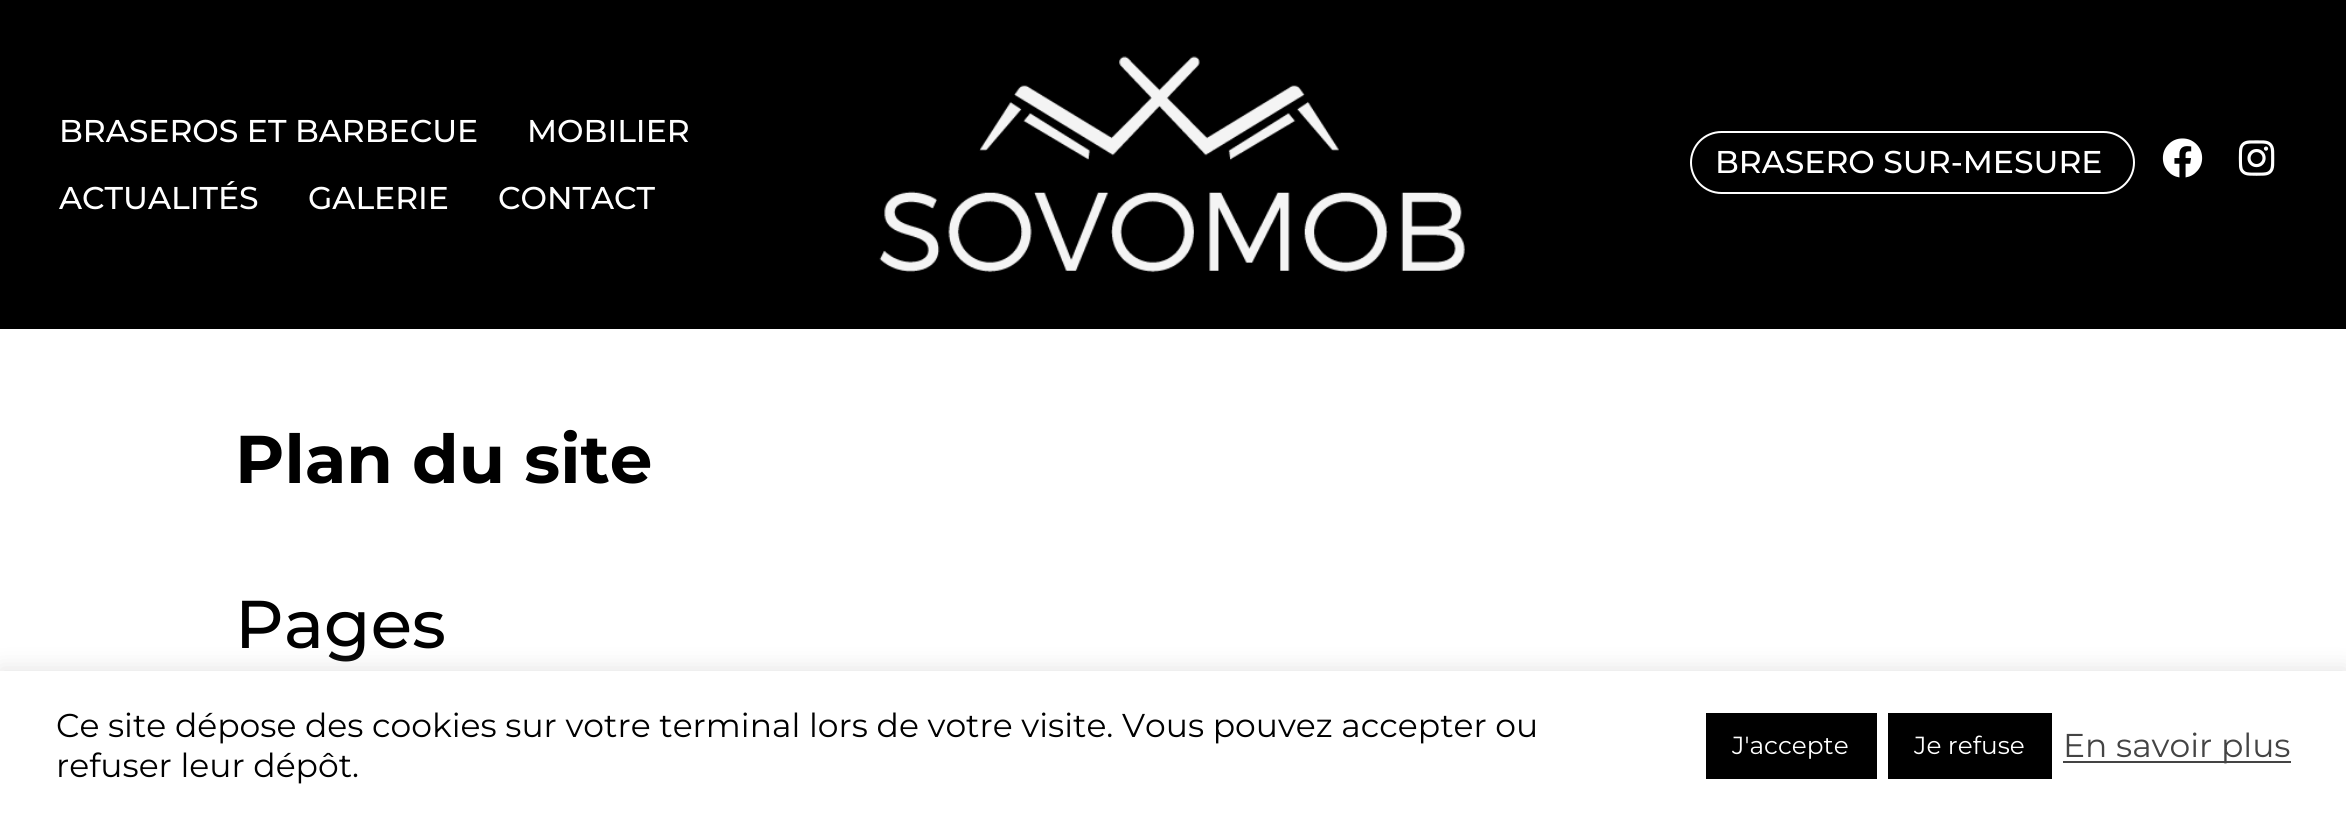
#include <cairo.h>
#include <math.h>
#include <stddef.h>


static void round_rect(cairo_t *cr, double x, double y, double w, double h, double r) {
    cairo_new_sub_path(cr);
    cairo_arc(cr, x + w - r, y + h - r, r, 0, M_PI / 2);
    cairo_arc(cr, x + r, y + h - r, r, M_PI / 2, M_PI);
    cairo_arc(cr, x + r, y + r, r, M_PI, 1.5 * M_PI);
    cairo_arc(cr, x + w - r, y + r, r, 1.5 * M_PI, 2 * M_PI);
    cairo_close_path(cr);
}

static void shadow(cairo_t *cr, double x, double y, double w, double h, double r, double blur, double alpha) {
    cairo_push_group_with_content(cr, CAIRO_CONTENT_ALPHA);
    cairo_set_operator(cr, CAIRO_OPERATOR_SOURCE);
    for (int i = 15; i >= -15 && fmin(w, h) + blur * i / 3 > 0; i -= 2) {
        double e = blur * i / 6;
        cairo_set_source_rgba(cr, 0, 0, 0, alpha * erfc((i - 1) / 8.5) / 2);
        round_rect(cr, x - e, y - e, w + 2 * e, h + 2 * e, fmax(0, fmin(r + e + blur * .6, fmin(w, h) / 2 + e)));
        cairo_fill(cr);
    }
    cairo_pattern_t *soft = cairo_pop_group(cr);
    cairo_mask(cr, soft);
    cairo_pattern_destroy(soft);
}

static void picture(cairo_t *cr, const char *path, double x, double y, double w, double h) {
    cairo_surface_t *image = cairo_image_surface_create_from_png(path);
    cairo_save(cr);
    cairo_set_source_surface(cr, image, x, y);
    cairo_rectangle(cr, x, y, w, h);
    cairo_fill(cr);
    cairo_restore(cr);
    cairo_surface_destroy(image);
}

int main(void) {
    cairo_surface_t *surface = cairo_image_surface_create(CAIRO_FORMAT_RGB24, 2346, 821);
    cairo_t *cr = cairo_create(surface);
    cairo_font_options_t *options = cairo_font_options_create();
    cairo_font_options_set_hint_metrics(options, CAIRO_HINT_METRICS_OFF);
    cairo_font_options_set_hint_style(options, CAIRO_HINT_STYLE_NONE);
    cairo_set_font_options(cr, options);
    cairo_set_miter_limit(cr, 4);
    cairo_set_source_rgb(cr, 1, 1, 1);
    cairo_paint(cr);
    cairo_set_source_rgb(cr, 0, 0, 0);
    cairo_rectangle(cr, 0, 0, 2346, 329);
    cairo_fill(cr);
    cairo_select_font_face(cr, "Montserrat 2 Thin", CAIRO_FONT_SLANT_NORMAL, CAIRO_FONT_WEIGHT_NORMAL);
    cairo_set_font_size(cr, 31.5);
    cairo_set_source_rgb(cr, 1, 1, 1);
    cairo_move_to(cr, 59, 142);
    cairo_show_text(cr, "BRASEROS ET BARBECUE");
    cairo_move_to(cr, 527, 142);
    cairo_show_text(cr, "MOBILIER");
    cairo_move_to(cr, 59, 209);
    cairo_show_text(cr, "ACTUALITÉS");
    cairo_move_to(cr, 308, 209);
    cairo_show_text(cr, "GALERIE");
    cairo_move_to(cr, 498, 209);
    cairo_show_text(cr, "CONTACT");
    picture(cr, "img1.png", 879, 56, 586, 217);
    round_rect(cr, 1691, 132, 443, 61, 30.5);
    cairo_stroke(cr);
    cairo_move_to(cr, 1715, 173);
    cairo_show_text(cr, "BRASERO SUR-MESURE");
    picture(cr, "img2.png", 2162, 138, 41, 40);
    picture(cr, "img3.png", 2238, 140, 37, 36);
    cairo_select_font_face(cr, "Montserrat Thin", CAIRO_FONT_SLANT_NORMAL, CAIRO_FONT_WEIGHT_NORMAL);
    cairo_set_font_size(cr, 67.5);
    cairo_set_source_rgb(cr, 0, 0, 0);
    cairo_move_to(cr, 235, 483);
    cairo_show_text(cr, "Plan du site");
    cairo_select_font_face(cr, "Montserrat 2 Thin", CAIRO_FONT_SLANT_NORMAL, CAIRO_FONT_WEIGHT_NORMAL);
    cairo_move_to(cr, 235, 648);
    cairo_show_text(cr, "Pages");
    cairo_set_source_rgb(cr, 0.675, 0.671, 0.671);
    shadow(cr, 0, 668, 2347, 151, 0, 11, 0.3);
    cairo_set_source_rgb(cr, 1, 1, 1);
    cairo_rectangle(cr, 0, 671, 2346, 150);
    cairo_fill(cr);
    cairo_select_font_face(cr, "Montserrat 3 Thin", CAIRO_FONT_SLANT_NORMAL, CAIRO_FONT_WEIGHT_NORMAL);
    cairo_set_font_size(cr, 33);
    cairo_set_source_rgb(cr, 0, 0, 0);
    cairo_move_to(cr, 56, 737);
    cairo_show_text(cr, "Ce site dépose des cookies sur votre terminal lors de votre visite. Vous pouvez accepter ou");
    cairo_move_to(cr, 56, 777);
    cairo_show_text(cr, "refuser leur dépôt.");
    cairo_rectangle(cr, 1706, 713, 171, 66);
    cairo_fill(cr);
    cairo_set_font_size(cr, 24.75);
    cairo_set_source_rgb(cr, 1, 1, 1);
    cairo_move_to(cr, 1732, 754);
    cairo_show_text(cr, "J'accepte");
    cairo_set_source_rgb(cr, 0, 0, 0);
    cairo_rectangle(cr, 1888, 713, 164, 66);
    cairo_fill(cr);
    cairo_set_source_rgb(cr, 1, 1, 1);
    cairo_move_to(cr, 1914, 754);
    cairo_show_text(cr, "Je refuse");
    cairo_set_source_rgb(cr, 0.267, 0.267, 0.267);
    cairo_rectangle(cr, 2063, 761, 228, 2);
    cairo_fill(cr);
    cairo_set_font_size(cr, 33);
    cairo_move_to(cr, 2063, 757);
    cairo_show_text(cr, "En savoir plus");
    cairo_surface_write_to_png(surface, "page.png");
    cairo_font_options_destroy(options);
    cairo_destroy(cr);
    cairo_surface_destroy(surface);
    return 0;
}
